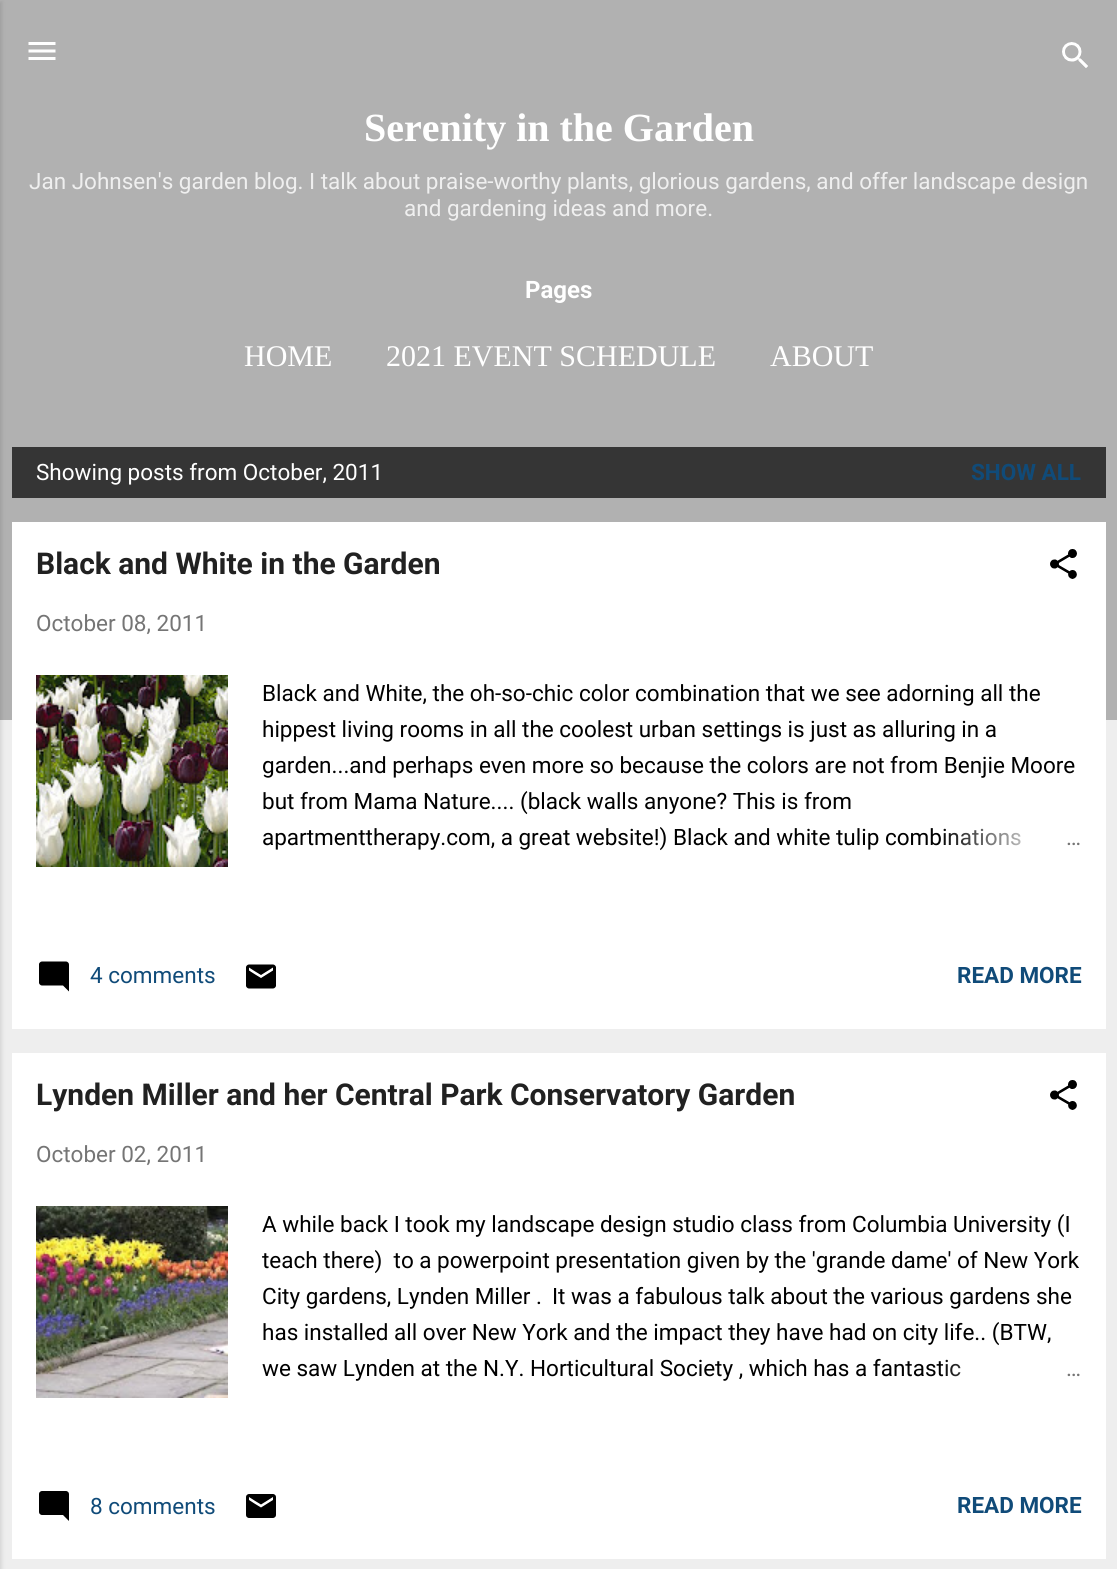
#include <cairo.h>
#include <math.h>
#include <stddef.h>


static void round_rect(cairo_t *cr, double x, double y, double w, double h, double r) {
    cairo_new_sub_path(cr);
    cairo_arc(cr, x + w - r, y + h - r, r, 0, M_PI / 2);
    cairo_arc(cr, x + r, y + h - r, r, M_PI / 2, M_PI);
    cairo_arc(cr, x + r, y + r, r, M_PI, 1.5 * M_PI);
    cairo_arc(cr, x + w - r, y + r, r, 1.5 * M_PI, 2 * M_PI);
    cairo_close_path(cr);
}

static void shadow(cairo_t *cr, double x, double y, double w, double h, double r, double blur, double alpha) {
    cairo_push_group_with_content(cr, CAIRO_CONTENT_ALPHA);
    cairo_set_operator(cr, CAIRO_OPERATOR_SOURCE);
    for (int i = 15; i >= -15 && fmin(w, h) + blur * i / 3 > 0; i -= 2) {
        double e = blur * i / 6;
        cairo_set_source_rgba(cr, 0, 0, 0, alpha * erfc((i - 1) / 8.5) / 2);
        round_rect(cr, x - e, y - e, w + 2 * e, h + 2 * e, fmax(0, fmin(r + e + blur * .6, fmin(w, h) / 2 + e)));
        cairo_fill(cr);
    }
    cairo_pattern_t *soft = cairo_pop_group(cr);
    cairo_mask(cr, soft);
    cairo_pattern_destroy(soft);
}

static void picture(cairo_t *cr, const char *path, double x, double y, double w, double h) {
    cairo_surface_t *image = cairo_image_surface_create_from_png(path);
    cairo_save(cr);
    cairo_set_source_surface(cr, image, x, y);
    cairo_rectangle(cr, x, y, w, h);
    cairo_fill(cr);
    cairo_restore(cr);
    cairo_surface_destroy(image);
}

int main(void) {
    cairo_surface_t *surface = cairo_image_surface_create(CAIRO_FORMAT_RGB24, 1117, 1569);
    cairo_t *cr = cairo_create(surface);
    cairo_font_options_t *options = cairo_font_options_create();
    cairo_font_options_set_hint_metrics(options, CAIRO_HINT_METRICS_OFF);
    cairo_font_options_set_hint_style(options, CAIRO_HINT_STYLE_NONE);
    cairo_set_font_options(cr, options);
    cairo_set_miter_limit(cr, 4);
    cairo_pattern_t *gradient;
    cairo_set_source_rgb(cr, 0.933, 0.933, 0.933);
    cairo_paint(cr);
    cairo_set_source_rgb(cr, 0.694, 0.694, 0.694);
    cairo_rectangle(cr, 0, 0, 1117, 720);
    cairo_fill(cr);
    cairo_set_source_rgb(cr, 0, 0, 0);
    shadow(cr, -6, 2, 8, 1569, 0, 2, 0.1);
    picture(cr, "img1.png", 28, 42, 28, 18);
    picture(cr, "img2.png", 1062, 42, 26, 26);
    cairo_select_font_face(cr, "Liberation Serif", CAIRO_FONT_SLANT_NORMAL, CAIRO_FONT_WEIGHT_BOLD);
    cairo_set_font_size(cr, 40);
    cairo_set_source_rgb(cr, 1, 1, 1);
    cairo_move_to(cr, 364, 141);
    cairo_show_text(cr, "Serenity in the Garden");
    cairo_select_font_face(cr, "Roboto", CAIRO_FONT_SLANT_NORMAL, CAIRO_FONT_WEIGHT_NORMAL);
    cairo_set_font_size(cr, 22.5);
    cairo_set_source_rgb(cr, 0.937, 0.937, 0.937);
    cairo_move_to(cr, 29, 189);
    cairo_show_text(cr, "Jan Johnsen's garden blog. I talk about praise-worthy plants, glorious gardens, and offer landscape design");
    cairo_move_to(cr, 404, 216);
    cairo_show_text(cr, "and gardening ideas and more.");
    cairo_select_font_face(cr, "Roboto", CAIRO_FONT_SLANT_NORMAL, CAIRO_FONT_WEIGHT_BOLD);
    cairo_set_font_size(cr, 24);
    cairo_set_source_rgb(cr, 1, 1, 1);
    cairo_move_to(cr, 525, 298);
    cairo_show_text(cr, "Pages");
    cairo_select_font_face(cr, "Liberation Serif", CAIRO_FONT_SLANT_NORMAL, CAIRO_FONT_WEIGHT_NORMAL);
    cairo_set_font_size(cr, 30);
    cairo_move_to(cr, 244, 366);
    cairo_show_text(cr, "HOME");
    cairo_move_to(cr, 386, 366);
    cairo_show_text(cr, "2021 EVENT SCHEDULE");
    cairo_move_to(cr, 770, 366);
    cairo_show_text(cr, "ABOUT");
    cairo_set_source_rgb(cr, 0.208, 0.208, 0.208);
    cairo_rectangle(cr, 12, 447, 1094, 51);
    cairo_fill(cr);
    cairo_select_font_face(cr, "Roboto", CAIRO_FONT_SLANT_NORMAL, CAIRO_FONT_WEIGHT_NORMAL);
    cairo_set_font_size(cr, 22.5);
    cairo_set_source_rgb(cr, 1, 1, 1);
    cairo_move_to(cr, 36, 480);
    cairo_show_text(cr, "Showing posts from October, 2011");
    cairo_select_font_face(cr, "Roboto", CAIRO_FONT_SLANT_NORMAL, CAIRO_FONT_WEIGHT_BOLD);
    cairo_set_source_rgb(cr, 0.063, 0.294, 0.475);
    cairo_move_to(cr, 971, 480);
    cairo_show_text(cr, "SHOW ALL");
    cairo_set_source_rgb(cr, 1, 1, 1);
    cairo_rectangle(cr, 12, 522, 1094, 507);
    cairo_fill(cr);
    cairo_set_font_size(cr, 30);
    cairo_set_source_rgb(cr, 0.129, 0.129, 0.129);
    cairo_move_to(cr, 36, 574);
    cairo_show_text(cr, "Black and White in the Garden");
    picture(cr, "img3.png", 1050, 549, 27, 30);
    cairo_select_font_face(cr, "Roboto", CAIRO_FONT_SLANT_NORMAL, CAIRO_FONT_WEIGHT_NORMAL);
    cairo_set_font_size(cr, 22.5);
    cairo_set_source_rgb(cr, 0.459, 0.459, 0.459);
    cairo_move_to(cr, 36, 631);
    cairo_show_text(cr, "October 08, 2011");
    picture(cr, "img4.png", 36, 675, 192, 192);
    cairo_set_source_rgb(cr, 0, 0, 0);
    cairo_move_to(cr, 262, 701);
    cairo_show_text(cr, "Black and White, the oh-so-chic color combination that we see adorning all the");
    cairo_move_to(cr, 262, 737);
    cairo_show_text(cr, "hippest living rooms in all the coolest urban settings is just as alluring in a");
    cairo_move_to(cr, 262, 773);
    cairo_show_text(cr, "garden...and perhaps even more so because the colors are not from Benjie Moore");
    cairo_move_to(cr, 262, 809);
    cairo_show_text(cr, "but from Mama Nature.... (black walls anyone? This is from");
    cairo_move_to(cr, 262, 845);
    cairo_show_text(cr, "apartmenttherapy.com, a great website!) Black and white tulip combinations");
    gradient = cairo_pattern_create_linear(1082, 837, 938, 837);
    cairo_pattern_add_color_stop_rgba(gradient, 0, 1, 1, 1, 1);
    cairo_pattern_add_color_stop_rgba(gradient, 0.2, 1, 1, 1, 1);
    cairo_pattern_add_color_stop_rgba(gradient, 1, 1, 1, 1, 0);
    cairo_set_source(cr, gradient);
    cairo_pattern_destroy(gradient);
    cairo_rectangle(cr, 943, 828, 78, 18);
    cairo_fill(cr);
    cairo_set_source_rgb(cr, 0.459, 0.459, 0.459);
    cairo_move_to(cr, 1066, 845);
    cairo_show_text(cr, "…");
    picture(cr, "img5.png", 39, 961, 30, 31);
    cairo_set_source_rgb(cr, 0.063, 0.294, 0.475);
    cairo_move_to(cr, 90, 983);
    cairo_show_text(cr, "4 comments");
    picture(cr, "img6.png", 246, 964, 30, 25);
    cairo_select_font_face(cr, "Roboto", CAIRO_FONT_SLANT_NORMAL, CAIRO_FONT_WEIGHT_BOLD);
    cairo_move_to(cr, 957, 983);
    cairo_show_text(cr, "READ MORE");
    cairo_set_source_rgb(cr, 1, 1, 1);
    cairo_rectangle(cr, 12, 1053, 1094, 506);
    cairo_fill(cr);
    cairo_set_font_size(cr, 30);
    cairo_set_source_rgb(cr, 0.129, 0.129, 0.129);
    cairo_move_to(cr, 36, 1105);
    cairo_show_text(cr, "Lynden Miller and her Central Park Conservatory Garden");
    picture(cr, "img3.png", 1050, 1080, 27, 30);
    cairo_select_font_face(cr, "Roboto", CAIRO_FONT_SLANT_NORMAL, CAIRO_FONT_WEIGHT_NORMAL);
    cairo_set_font_size(cr, 22.5);
    cairo_set_source_rgb(cr, 0.459, 0.459, 0.459);
    cairo_move_to(cr, 36, 1162);
    cairo_show_text(cr, "October 02, 2011");
    picture(cr, "img7.png", 36, 1206, 192, 192);
    cairo_set_source_rgb(cr, 0, 0, 0);
    cairo_move_to(cr, 262, 1232);
    cairo_show_text(cr, "A while back I took my landscape design studio class from Columbia University (I");
    cairo_move_to(cr, 262, 1268);
    cairo_show_text(cr, "teach there)  to a powerpoint presentation given by the 'grande dame' of New York");
    cairo_move_to(cr, 262, 1304);
    cairo_show_text(cr, "City gardens, Lynden Miller .");
    cairo_move_to(cr, 552, 1304);
    cairo_show_text(cr, "It was a fabulous talk about the various gardens she");
    cairo_move_to(cr, 262, 1340);
    cairo_show_text(cr, "has installed all over New York and the impact they have had on city life.. (BTW,");
    cairo_move_to(cr, 262, 1376);
    cairo_show_text(cr, "we saw Lynden at the N.Y. Horticultural Society , which has a fantastic");
    gradient = cairo_pattern_create_linear(1082, 1368, 938, 1368);
    cairo_pattern_add_color_stop_rgba(gradient, 0, 1, 1, 1, 1);
    cairo_pattern_add_color_stop_rgba(gradient, 0.2, 1, 1, 1, 1);
    cairo_pattern_add_color_stop_rgba(gradient, 1, 1, 1, 1, 0);
    cairo_set_source(cr, gradient);
    cairo_pattern_destroy(gradient);
    cairo_rectangle(cr, 940, 1359, 20, 18);
    cairo_fill(cr);
    cairo_set_source_rgb(cr, 0.459, 0.459, 0.459);
    cairo_move_to(cr, 1066, 1376);
    cairo_show_text(cr, "…");
    picture(cr, "img8.png", 39, 1491, 30, 30);
    cairo_set_source_rgb(cr, 0.063, 0.294, 0.475);
    cairo_move_to(cr, 90, 1514);
    cairo_show_text(cr, "8 comments");
    picture(cr, "img9.png", 246, 1494, 30, 24);
    cairo_select_font_face(cr, "Roboto", CAIRO_FONT_SLANT_NORMAL, CAIRO_FONT_WEIGHT_BOLD);
    cairo_move_to(cr, 957, 1513);
    cairo_show_text(cr, "READ MORE");
    cairo_surface_write_to_png(surface, "page.png");
    cairo_font_options_destroy(options);
    cairo_destroy(cr);
    cairo_surface_destroy(surface);
    return 0;
}
